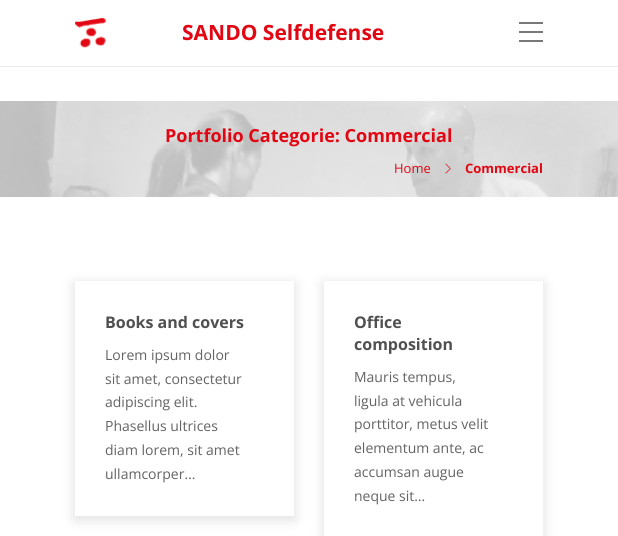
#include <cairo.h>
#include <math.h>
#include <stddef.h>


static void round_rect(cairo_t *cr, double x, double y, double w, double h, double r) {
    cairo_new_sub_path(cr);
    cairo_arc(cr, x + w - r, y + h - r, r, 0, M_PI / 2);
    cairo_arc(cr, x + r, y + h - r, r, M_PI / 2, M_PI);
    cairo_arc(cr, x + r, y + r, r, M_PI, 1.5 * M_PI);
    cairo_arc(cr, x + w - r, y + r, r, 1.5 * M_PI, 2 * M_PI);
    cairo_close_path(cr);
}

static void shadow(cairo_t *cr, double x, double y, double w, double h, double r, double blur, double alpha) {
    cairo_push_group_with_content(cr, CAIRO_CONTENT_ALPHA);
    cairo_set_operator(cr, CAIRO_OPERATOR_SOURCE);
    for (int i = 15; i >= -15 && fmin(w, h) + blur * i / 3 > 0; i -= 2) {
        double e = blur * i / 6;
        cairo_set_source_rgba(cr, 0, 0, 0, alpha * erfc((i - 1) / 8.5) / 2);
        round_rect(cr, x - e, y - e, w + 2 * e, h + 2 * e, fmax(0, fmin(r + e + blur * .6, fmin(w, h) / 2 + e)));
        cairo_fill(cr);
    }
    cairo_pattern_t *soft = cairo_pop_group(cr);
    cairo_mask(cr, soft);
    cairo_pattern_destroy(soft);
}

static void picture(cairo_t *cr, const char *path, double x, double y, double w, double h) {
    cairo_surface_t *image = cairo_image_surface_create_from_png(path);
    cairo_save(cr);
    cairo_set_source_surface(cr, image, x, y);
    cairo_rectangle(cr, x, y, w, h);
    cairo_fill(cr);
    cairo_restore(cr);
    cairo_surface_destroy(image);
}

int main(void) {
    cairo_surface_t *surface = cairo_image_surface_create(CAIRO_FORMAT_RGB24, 618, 536);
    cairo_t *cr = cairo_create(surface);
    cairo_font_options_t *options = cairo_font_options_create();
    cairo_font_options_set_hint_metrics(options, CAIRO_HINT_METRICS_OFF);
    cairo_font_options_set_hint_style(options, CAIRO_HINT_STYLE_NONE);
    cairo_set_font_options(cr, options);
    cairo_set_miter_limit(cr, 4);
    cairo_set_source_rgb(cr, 1, 1, 1);
    cairo_paint(cr);
    cairo_set_source_rgb(cr, 0.922, 0.922, 0.922);
    cairo_rectangle(cr, 0, 66, 618, 1);
    cairo_fill(cr);
    picture(cr, "img1.png", 75, 18, 31, 30);
    cairo_select_font_face(cr, "Open Sans", CAIRO_FONT_SLANT_NORMAL, CAIRO_FONT_WEIGHT_BOLD);
    cairo_set_font_size(cr, 21);
    cairo_set_source_rgb(cr, 0.886, 0.027, 0.078);
    cairo_move_to(cr, 182, 40);
    cairo_show_text(cr, "SANDO Selfdefense");
    cairo_set_source_rgb(cr, 0.475, 0.475, 0.475);
    cairo_rectangle(cr, 519, 31, 24, 2);
    cairo_fill(cr);
    cairo_rectangle(cr, 519, 22, 24, 2);
    cairo_fill(cr);
    cairo_rectangle(cr, 519, 40, 24, 2);
    cairo_fill(cr);
    cairo_set_source_rgb(cr, 0.984, 0.984, 0.984);
    cairo_rectangle(cr, 0, 101, 618, 96);
    cairo_fill(cr);
    picture(cr, "img2.png", 0, 101, 618, 96);
    cairo_set_font_size(cr, 18);
    cairo_set_source_rgb(cr, 0.886, 0.027, 0.078);
    cairo_move_to(cr, 165, 142);
    cairo_show_text(cr, "Portfolio Categorie: Commercial");
    cairo_select_font_face(cr, "Open Sans", CAIRO_FONT_SLANT_NORMAL, CAIRO_FONT_WEIGHT_NORMAL);
    cairo_set_font_size(cr, 13);
    cairo_move_to(cr, 394, 173);
    cairo_show_text(cr, "Home");
    picture(cr, "img3.png", 445, 163, 6, 11);
    cairo_select_font_face(cr, "Open Sans", CAIRO_FONT_SLANT_NORMAL, CAIRO_FONT_WEIGHT_BOLD);
    cairo_move_to(cr, 465, 173);
    cairo_show_text(cr, "Commercial");
    cairo_save(cr);
    cairo_set_fill_rule(cr, CAIRO_FILL_RULE_EVEN_ODD);
    cairo_new_path(cr);
    cairo_move_to(cr, 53, 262);
    cairo_line_to(cr, 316, 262);
    cairo_line_to(cr, 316, 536);
    cairo_line_to(cr, 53, 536);
    cairo_close_path(cr);
    cairo_move_to(cr, 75, 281);
    cairo_line_to(cr, 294, 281);
    cairo_line_to(cr, 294, 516);
    cairo_line_to(cr, 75, 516);
    cairo_close_path(cr);
    cairo_clip(cr);
    cairo_set_source_rgb(cr, 0, 0, 0);
    shadow(cr, 74, 283, 221, 237, 0, 6.5, 0.12);
    cairo_restore(cr);
    cairo_set_font_size(cr, 16);
    cairo_set_source_rgb(cr, 0.314, 0.314, 0.314);
    cairo_move_to(cr, 105, 328);
    cairo_show_text(cr, "Books and covers");
    cairo_select_font_face(cr, "Open Sans", CAIRO_FONT_SLANT_NORMAL, CAIRO_FONT_WEIGHT_NORMAL);
    cairo_set_font_size(cr, 14);
    cairo_set_source_rgb(cr, 0.388, 0.388, 0.388);
    cairo_move_to(cr, 105, 360);
    cairo_show_text(cr, "Lorem ipsum dolor");
    cairo_move_to(cr, 105, 384);
    cairo_show_text(cr, "sit amet, consectetur");
    cairo_move_to(cr, 105, 407);
    cairo_show_text(cr, "adipiscing elit.");
    cairo_move_to(cr, 105, 431);
    cairo_show_text(cr, "Phasellus ultrices");
    cairo_move_to(cr, 105, 455);
    cairo_show_text(cr, "diam lorem, sit amet");
    cairo_move_to(cr, 105, 479);
    cairo_show_text(cr, "ullamcorper…");
    cairo_save(cr);
    cairo_set_fill_rule(cr, CAIRO_FILL_RULE_EVEN_ODD);
    cairo_new_path(cr);
    cairo_move_to(cr, 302, 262);
    cairo_line_to(cr, 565, 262);
    cairo_line_to(cr, 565, 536);
    cairo_line_to(cr, 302, 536);
    cairo_close_path(cr);
    cairo_move_to(cr, 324, 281);
    cairo_line_to(cr, 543, 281);
    cairo_line_to(cr, 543, 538);
    cairo_line_to(cr, 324, 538);
    cairo_close_path(cr);
    cairo_clip(cr);
    cairo_set_source_rgb(cr, 0, 0, 0);
    shadow(cr, 323, 283, 221, 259, 0, 6.5, 0.12);
    cairo_restore(cr);
    cairo_select_font_face(cr, "Open Sans", CAIRO_FONT_SLANT_NORMAL, CAIRO_FONT_WEIGHT_BOLD);
    cairo_set_font_size(cr, 16);
    cairo_set_source_rgb(cr, 0.314, 0.314, 0.314);
    cairo_move_to(cr, 354, 328);
    cairo_show_text(cr, "Office");
    cairo_move_to(cr, 354, 350);
    cairo_show_text(cr, "composition");
    cairo_select_font_face(cr, "Open Sans", CAIRO_FONT_SLANT_NORMAL, CAIRO_FONT_WEIGHT_NORMAL);
    cairo_set_font_size(cr, 14);
    cairo_set_source_rgb(cr, 0.388, 0.388, 0.388);
    cairo_move_to(cr, 354, 382);
    cairo_show_text(cr, "Mauris tempus,");
    cairo_move_to(cr, 354, 406);
    cairo_show_text(cr, "ligula at vehicula");
    cairo_move_to(cr, 354, 429);
    cairo_show_text(cr, "porttitor, metus velit");
    cairo_move_to(cr, 354, 453);
    cairo_show_text(cr, "elementum ante, ac");
    cairo_move_to(cr, 354, 477);
    cairo_show_text(cr, "accumsan augue");
    cairo_move_to(cr, 354, 501);
    cairo_show_text(cr, "neque sit…");
    cairo_surface_write_to_png(surface, "page.png");
    cairo_font_options_destroy(options);
    cairo_destroy(cr);
    cairo_surface_destroy(surface);
    return 0;
}
